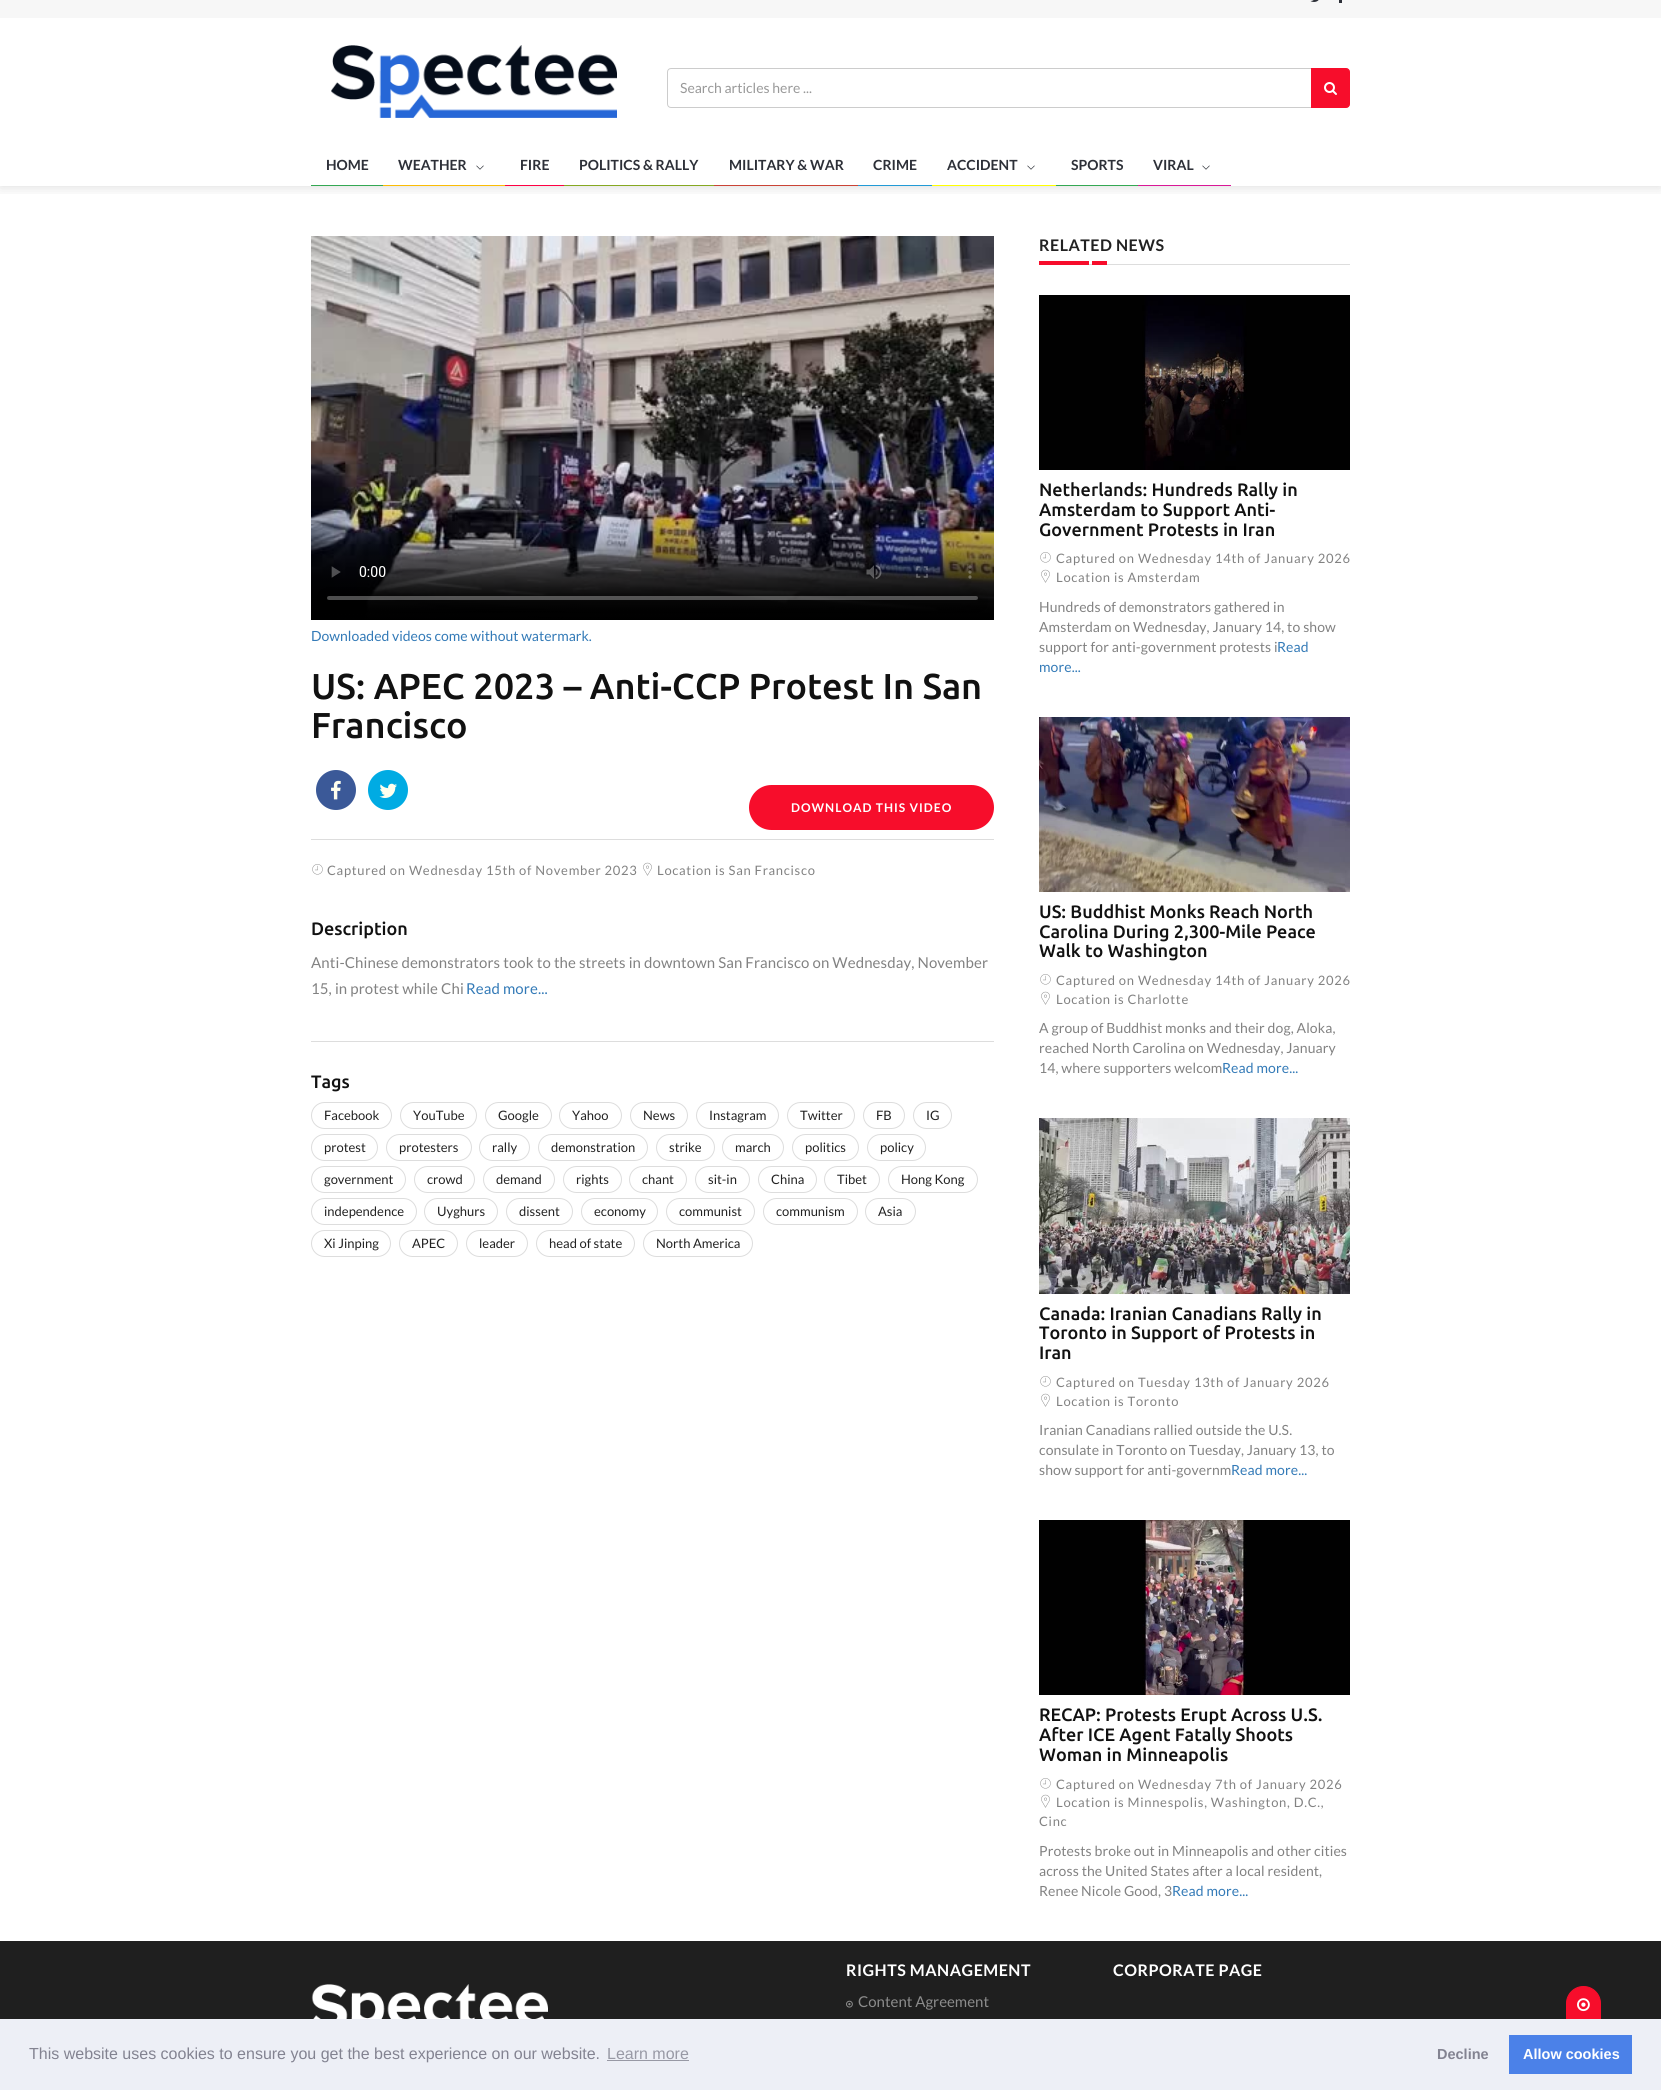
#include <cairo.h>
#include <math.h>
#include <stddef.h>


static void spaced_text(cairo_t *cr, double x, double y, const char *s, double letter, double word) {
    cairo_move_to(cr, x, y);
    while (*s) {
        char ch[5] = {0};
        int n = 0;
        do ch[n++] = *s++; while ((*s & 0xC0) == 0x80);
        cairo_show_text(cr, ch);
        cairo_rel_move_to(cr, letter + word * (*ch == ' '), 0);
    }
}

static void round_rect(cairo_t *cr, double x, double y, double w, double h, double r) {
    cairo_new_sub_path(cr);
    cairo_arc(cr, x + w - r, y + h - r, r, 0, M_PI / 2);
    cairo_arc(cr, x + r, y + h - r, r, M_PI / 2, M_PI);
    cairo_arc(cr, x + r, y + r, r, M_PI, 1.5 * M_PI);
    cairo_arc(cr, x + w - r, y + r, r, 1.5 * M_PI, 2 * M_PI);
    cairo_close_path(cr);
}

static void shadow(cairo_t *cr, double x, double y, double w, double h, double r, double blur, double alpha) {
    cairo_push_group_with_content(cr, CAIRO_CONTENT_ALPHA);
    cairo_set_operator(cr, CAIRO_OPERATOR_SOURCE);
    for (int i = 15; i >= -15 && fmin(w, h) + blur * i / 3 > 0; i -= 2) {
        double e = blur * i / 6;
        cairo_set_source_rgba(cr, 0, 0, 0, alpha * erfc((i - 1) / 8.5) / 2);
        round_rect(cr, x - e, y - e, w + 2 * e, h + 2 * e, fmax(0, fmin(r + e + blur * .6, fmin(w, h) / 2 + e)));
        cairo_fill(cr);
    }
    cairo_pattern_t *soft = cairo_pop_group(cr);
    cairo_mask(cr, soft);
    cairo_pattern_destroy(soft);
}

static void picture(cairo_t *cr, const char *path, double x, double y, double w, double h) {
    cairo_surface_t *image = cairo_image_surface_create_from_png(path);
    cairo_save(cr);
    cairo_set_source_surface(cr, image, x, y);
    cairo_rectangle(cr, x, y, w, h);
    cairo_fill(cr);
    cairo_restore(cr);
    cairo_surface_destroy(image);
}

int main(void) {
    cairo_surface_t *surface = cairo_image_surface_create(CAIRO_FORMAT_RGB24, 1661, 2090);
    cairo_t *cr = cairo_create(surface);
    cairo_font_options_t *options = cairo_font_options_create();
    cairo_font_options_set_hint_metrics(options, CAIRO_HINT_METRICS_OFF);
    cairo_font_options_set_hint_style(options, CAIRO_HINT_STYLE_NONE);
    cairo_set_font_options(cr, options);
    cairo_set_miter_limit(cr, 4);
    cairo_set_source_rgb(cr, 1, 1, 1);
    cairo_paint(cr);
    cairo_save(cr);
    cairo_rectangle(cr, 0, 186, 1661, 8);
    cairo_clip(cr);
    cairo_set_source_rgb(cr, 0, 0, 0);
    shadow(cr, 0, -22, 1661, 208, 0, 7.5, 0.15);
    cairo_restore(cr);
    cairo_set_source_rgb(cr, 0.965, 0.965, 0.965);
    cairo_rectangle(cr, 0, 0, 1661, 18);
    cairo_fill(cr);
    picture(cr, "img1.png", 1310, 0, 9, 2);
    cairo_set_source_rgb(cr, 0.176, 0.188, 0.22);
    cairo_rectangle(cr, 1339, 0, 3, 3);
    cairo_fill(cr);
    picture(cr, "img2.png", 331, 45, 286, 73);
    cairo_new_path(cr);
    cairo_move_to(cr, 671, 68.5);
    cairo_line_to(cr, 1311.5, 68.5);
    cairo_line_to(cr, 1311.5, 107.5);
    cairo_line_to(cr, 671, 107.5);
    cairo_curve_to(cr, 669, 107.5, 667.5, 106, 667.5, 104);
    cairo_line_to(cr, 667.5, 72);
    cairo_curve_to(cr, 667.5, 70, 669, 68.5, 671, 68.5);
    cairo_close_path(cr);
    cairo_set_source_rgb(cr, 0.8, 0.8, 0.8);
    cairo_set_line_width(cr, 1);
    cairo_stroke(cr);
    cairo_select_font_face(cr, "Lato", CAIRO_FONT_SLANT_NORMAL, CAIRO_FONT_WEIGHT_NORMAL);
    cairo_set_font_size(cr, 14);
    cairo_set_source_rgb(cr, 0.6, 0.6, 0.6);
    cairo_move_to(cr, 680, 93);
    cairo_show_text(cr, "Search articles here ...");
    cairo_set_source_rgb(cr, 0.965, 0.051, 0.169);
    cairo_new_path(cr);
    cairo_move_to(cr, 1311.5, 68.5);
    cairo_line_to(cr, 1346, 68.5);
    cairo_curve_to(cr, 1348, 68.5, 1349.5, 70, 1349.5, 72);
    cairo_line_to(cr, 1349.5, 104);
    cairo_curve_to(cr, 1349.5, 106, 1348, 107.5, 1346, 107.5);
    cairo_line_to(cr, 1311.5, 107.5);
    cairo_close_path(cr);
    cairo_fill_preserve(cr);
    cairo_stroke(cr);
    picture(cr, "img3.png", 1324, 82, 13, 13);
    cairo_set_source_rgb(cr, 0.204, 0.659, 0.325);
    cairo_rectangle(cr, 311, 185, 72, 1);
    cairo_fill(cr);
    cairo_select_font_face(cr, "Lato", CAIRO_FONT_SLANT_NORMAL, CAIRO_FONT_WEIGHT_BOLD);
    cairo_set_source_rgb(cr, 0.176, 0.188, 0.22);
    cairo_move_to(cr, 326, 170);
    cairo_show_text(cr, "HOME");
    cairo_set_source_rgb(cr, 0.984, 0.737, 0.02);
    cairo_rectangle(cr, 383, 185, 122, 1);
    cairo_fill(cr);
    cairo_set_source_rgb(cr, 0.176, 0.188, 0.22);
    cairo_move_to(cr, 398, 170);
    cairo_show_text(cr, "WEATHER");
    picture(cr, "img4.png", 476, 165, 8, 5);
    cairo_set_source_rgb(cr, 1, 0, 0.259);
    cairo_rectangle(cr, 505, 185, 59, 1);
    cairo_fill(cr);
    cairo_set_source_rgb(cr, 0.176, 0.188, 0.22);
    cairo_move_to(cr, 520, 170);
    cairo_show_text(cr, "FIRE");
    cairo_set_source_rgb(cr, 0.525, 0.659, 0.129);
    cairo_rectangle(cr, 564, 185, 150, 1);
    cairo_fill(cr);
    cairo_set_source_rgb(cr, 0.176, 0.188, 0.22);
    cairo_move_to(cr, 579, 170);
    cairo_show_text(cr, "POLITICS & RALLY");
    cairo_set_source_rgb(cr, 0.792, 0.263, 0.208);
    cairo_rectangle(cr, 714, 185, 144, 1);
    cairo_fill(cr);
    cairo_set_source_rgb(cr, 0.176, 0.188, 0.22);
    cairo_move_to(cr, 729, 170);
    cairo_show_text(cr, "MILITARY & WAR");
    cairo_set_source_rgb(cr, 0.133, 0.604, 0.839);
    cairo_rectangle(cr, 858, 185, 74, 1);
    cairo_fill(cr);
    cairo_set_source_rgb(cr, 0.176, 0.188, 0.22);
    cairo_move_to(cr, 873, 170);
    cairo_show_text(cr, "CRIME");
    cairo_set_source_rgb(cr, 1, 1, 0);
    cairo_rectangle(cr, 932, 185, 124, 1);
    cairo_fill(cr);
    cairo_set_source_rgb(cr, 0.176, 0.188, 0.22);
    cairo_move_to(cr, 947, 170);
    cairo_show_text(cr, "ACCIDENT");
    picture(cr, "img4.png", 1027, 165, 8, 5);
    cairo_set_source_rgb(cr, 0.204, 0.659, 0.325);
    cairo_rectangle(cr, 1056, 185, 82, 1);
    cairo_fill(cr);
    cairo_set_source_rgb(cr, 0.176, 0.188, 0.22);
    cairo_move_to(cr, 1071, 170);
    cairo_show_text(cr, "SPORTS");
    cairo_set_source_rgb(cr, 0.851, 0.094, 0.592);
    cairo_rectangle(cr, 1138, 185, 93, 1);
    cairo_fill(cr);
    cairo_set_source_rgb(cr, 0.176, 0.188, 0.22);
    cairo_move_to(cr, 1153, 170);
    cairo_show_text(cr, "VIRAL");
    picture(cr, "img4.png", 1202, 165, 8, 5);
    picture(cr, "img5.png", 311, 236, 683, 384);
    cairo_select_font_face(cr, "Lato", CAIRO_FONT_SLANT_NORMAL, CAIRO_FONT_WEIGHT_NORMAL);
    cairo_set_source_rgb(cr, 0.2, 0.478, 0.718);
    cairo_move_to(cr, 311, 641);
    cairo_show_text(cr, "Downloaded videos come without watermark.");
    cairo_select_font_face(cr, "Ubuntu Medium", CAIRO_FONT_SLANT_NORMAL, CAIRO_FONT_WEIGHT_NORMAL);
    cairo_set_font_size(cr, 36);
    cairo_set_source_rgb(cr, 0.067, 0.067, 0.067);
    cairo_move_to(cr, 311, 699);
    cairo_show_text(cr, "US: APEC 2023 – Anti-CCP Protest In San");
    cairo_move_to(cr, 311, 738);
    cairo_show_text(cr, "Francisco");
    cairo_set_source_rgb(cr, 0.867, 0.867, 0.867);
    cairo_rectangle(cr, 311, 839, 683, 1);
    cairo_fill(cr);
    cairo_set_source_rgb(cr, 0.231, 0.349, 0.596);
    cairo_arc(cr, 336, 790, 20, 0, 2 * M_PI);
    cairo_fill(cr);
    picture(cr, "img6.png", 331, 780, 10, 20);
    cairo_set_source_rgb(cr, 0, 0.671, 0.89);
    cairo_arc(cr, 388, 790, 20, 0, 2 * M_PI);
    cairo_fill(cr);
    picture(cr, "img7.png", 379, 783, 18, 15);
    cairo_set_source_rgb(cr, 0.965, 0.051, 0.169);
    round_rect(cr, 750, 786, 243, 43, 21.5);
    cairo_fill_preserve(cr);
    cairo_set_line_width(cr, 2);
    cairo_stroke(cr);
    cairo_select_font_face(cr, "Lato", CAIRO_FONT_SLANT_NORMAL, CAIRO_FONT_WEIGHT_BOLD);
    cairo_set_font_size(cr, 12);
    cairo_set_source_rgb(cr, 1, 1, 1);
    spaced_text(cr, 791, 812, "DOWNLOAD THIS VIDEO", 1, 0);
    picture(cr, "img8.png", 312, 864, 11, 11);
    cairo_select_font_face(cr, "Lato", CAIRO_FONT_SLANT_NORMAL, CAIRO_FONT_WEIGHT_NORMAL);
    cairo_set_font_size(cr, 13);
    cairo_set_source_rgb(cr, 0.51, 0.51, 0.51);
    spaced_text(cr, 327, 875, "Captured on Wednesday 15th of November 2023", 0.7, 0);
    picture(cr, "img9.png", 643, 862, 9, 14);
    spaced_text(cr, 657, 875, "Location is San Francisco", 0.7, 0);
    cairo_select_font_face(cr, "Ubuntu Medium", CAIRO_FONT_SLANT_NORMAL, CAIRO_FONT_WEIGHT_NORMAL);
    cairo_set_font_size(cr, 18);
    cairo_set_source_rgb(cr, 0.067, 0.067, 0.067);
    cairo_move_to(cr, 311, 935);
    cairo_show_text(cr, "Description");
    cairo_select_font_face(cr, "Lato", CAIRO_FONT_SLANT_NORMAL, CAIRO_FONT_WEIGHT_NORMAL);
    cairo_set_font_size(cr, 15);
    cairo_set_source_rgb(cr, 0.51, 0.51, 0.51);
    spaced_text(cr, 311, 968, "Anti-Chinese demonstrators took to the streets in downtown San Francisco on Wednesday, November", 0.1, 0);
    spaced_text(cr, 311, 994, "15, in protest while Chi", 0.1, 0);
    cairo_set_source_rgb(cr, 0.2, 0.478, 0.718);
    spaced_text(cr, 466, 994, "Read more...", 0.1, 0);
    cairo_set_source_rgb(cr, 0.867, 0.867, 0.867);
    cairo_rectangle(cr, 311, 1041, 683, 1);
    cairo_fill(cr);
    cairo_select_font_face(cr, "Ubuntu Medium", CAIRO_FONT_SLANT_NORMAL, CAIRO_FONT_WEIGHT_NORMAL);
    cairo_set_font_size(cr, 18);
    cairo_set_source_rgb(cr, 0.067, 0.067, 0.067);
    cairo_move_to(cr, 311, 1088);
    cairo_show_text(cr, "Tags");
    round_rect(cr, 311.5, 1102.5, 80, 26, 13);
    cairo_set_source_rgb(cr, 0.867, 0.867, 0.867);
    cairo_set_line_width(cr, 1);
    cairo_stroke(cr);
    cairo_select_font_face(cr, "Lato", CAIRO_FONT_SLANT_NORMAL, CAIRO_FONT_WEIGHT_NORMAL);
    cairo_set_font_size(cr, 13);
    cairo_set_source_rgb(cr, 0.133, 0.133, 0.133);
    cairo_move_to(cr, 324, 1120);
    cairo_show_text(cr, "Facebook");
    round_rect(cr, 400.5, 1102.5, 76, 26, 13);
    cairo_set_source_rgb(cr, 0.867, 0.867, 0.867);
    cairo_stroke(cr);
    cairo_set_source_rgb(cr, 0.133, 0.133, 0.133);
    cairo_move_to(cr, 413, 1120);
    cairo_show_text(cr, "YouTube");
    round_rect(cr, 485.5, 1102.5, 66, 26, 13);
    cairo_set_source_rgb(cr, 0.867, 0.867, 0.867);
    cairo_stroke(cr);
    cairo_set_source_rgb(cr, 0.133, 0.133, 0.133);
    cairo_move_to(cr, 498, 1120);
    cairo_show_text(cr, "Google");
    round_rect(cr, 559.5, 1102.5, 62, 26, 13);
    cairo_set_source_rgb(cr, 0.867, 0.867, 0.867);
    cairo_stroke(cr);
    cairo_set_source_rgb(cr, 0.133, 0.133, 0.133);
    cairo_move_to(cr, 572, 1120);
    cairo_show_text(cr, "Yahoo");
    round_rect(cr, 630.5, 1102.5, 57, 26, 13);
    cairo_set_source_rgb(cr, 0.867, 0.867, 0.867);
    cairo_stroke(cr);
    cairo_set_source_rgb(cr, 0.133, 0.133, 0.133);
    cairo_move_to(cr, 643, 1120);
    cairo_show_text(cr, "News");
    round_rect(cr, 696.5, 1102.5, 82, 26, 13);
    cairo_set_source_rgb(cr, 0.867, 0.867, 0.867);
    cairo_stroke(cr);
    cairo_set_source_rgb(cr, 0.133, 0.133, 0.133);
    cairo_move_to(cr, 709, 1120);
    cairo_show_text(cr, "Instagram");
    round_rect(cr, 787.5, 1102.5, 67, 26, 13);
    cairo_set_source_rgb(cr, 0.867, 0.867, 0.867);
    cairo_stroke(cr);
    cairo_set_source_rgb(cr, 0.133, 0.133, 0.133);
    cairo_move_to(cr, 800, 1120);
    cairo_show_text(cr, "Twitter");
    round_rect(cr, 863.5, 1102.5, 41, 26, 13);
    cairo_set_source_rgb(cr, 0.867, 0.867, 0.867);
    cairo_stroke(cr);
    cairo_set_source_rgb(cr, 0.133, 0.133, 0.133);
    cairo_move_to(cr, 876, 1120);
    cairo_show_text(cr, "FB");
    round_rect(cr, 913.5, 1102.5, 38, 26, 13);
    cairo_set_source_rgb(cr, 0.867, 0.867, 0.867);
    cairo_stroke(cr);
    cairo_set_source_rgb(cr, 0.133, 0.133, 0.133);
    cairo_move_to(cr, 926, 1120);
    cairo_show_text(cr, "IG");
    round_rect(cr, 311.5, 1134.5, 66, 26, 13);
    cairo_set_source_rgb(cr, 0.867, 0.867, 0.867);
    cairo_stroke(cr);
    cairo_set_source_rgb(cr, 0.133, 0.133, 0.133);
    cairo_move_to(cr, 324, 1152);
    cairo_show_text(cr, "protest");
    round_rect(cr, 386.5, 1134.5, 85, 26, 13);
    cairo_set_source_rgb(cr, 0.867, 0.867, 0.867);
    cairo_stroke(cr);
    cairo_set_source_rgb(cr, 0.133, 0.133, 0.133);
    cairo_move_to(cr, 399, 1152);
    cairo_show_text(cr, "protesters");
    round_rect(cr, 479.5, 1134.5, 50, 26, 13);
    cairo_set_source_rgb(cr, 0.867, 0.867, 0.867);
    cairo_stroke(cr);
    cairo_set_source_rgb(cr, 0.133, 0.133, 0.133);
    cairo_move_to(cr, 492, 1152);
    cairo_show_text(cr, "rally");
    round_rect(cr, 538.5, 1134.5, 109, 26, 13);
    cairo_set_source_rgb(cr, 0.867, 0.867, 0.867);
    cairo_stroke(cr);
    cairo_set_source_rgb(cr, 0.133, 0.133, 0.133);
    cairo_move_to(cr, 551, 1152);
    cairo_show_text(cr, "demonstration");
    round_rect(cr, 656.5, 1134.5, 58, 26, 13);
    cairo_set_source_rgb(cr, 0.867, 0.867, 0.867);
    cairo_stroke(cr);
    cairo_set_source_rgb(cr, 0.133, 0.133, 0.133);
    cairo_move_to(cr, 669, 1152);
    cairo_show_text(cr, "strike");
    round_rect(cr, 722.5, 1134.5, 61, 26, 13);
    cairo_set_source_rgb(cr, 0.867, 0.867, 0.867);
    cairo_stroke(cr);
    cairo_set_source_rgb(cr, 0.133, 0.133, 0.133);
    cairo_move_to(cr, 735, 1152);
    cairo_show_text(cr, "march");
    round_rect(cr, 792.5, 1134.5, 66, 26, 13);
    cairo_set_source_rgb(cr, 0.867, 0.867, 0.867);
    cairo_stroke(cr);
    cairo_set_source_rgb(cr, 0.133, 0.133, 0.133);
    cairo_move_to(cr, 805, 1152);
    cairo_show_text(cr, "politics");
    round_rect(cr, 867.5, 1134.5, 58, 26, 13);
    cairo_set_source_rgb(cr, 0.867, 0.867, 0.867);
    cairo_stroke(cr);
    cairo_set_source_rgb(cr, 0.133, 0.133, 0.133);
    cairo_move_to(cr, 880, 1152);
    cairo_show_text(cr, "policy");
    round_rect(cr, 311.5, 1166.5, 94, 26, 13);
    cairo_set_source_rgb(cr, 0.867, 0.867, 0.867);
    cairo_stroke(cr);
    cairo_set_source_rgb(cr, 0.133, 0.133, 0.133);
    cairo_move_to(cr, 324, 1184);
    cairo_show_text(cr, "government");
    round_rect(cr, 414.5, 1166.5, 60, 26, 13);
    cairo_set_source_rgb(cr, 0.867, 0.867, 0.867);
    cairo_stroke(cr);
    cairo_set_source_rgb(cr, 0.133, 0.133, 0.133);
    cairo_move_to(cr, 427, 1184);
    cairo_show_text(cr, "crowd");
    round_rect(cr, 483.5, 1166.5, 71, 26, 13);
    cairo_set_source_rgb(cr, 0.867, 0.867, 0.867);
    cairo_stroke(cr);
    cairo_set_source_rgb(cr, 0.133, 0.133, 0.133);
    cairo_move_to(cr, 496, 1184);
    cairo_show_text(cr, "demand");
    round_rect(cr, 563.5, 1166.5, 58, 26, 13);
    cairo_set_source_rgb(cr, 0.867, 0.867, 0.867);
    cairo_stroke(cr);
    cairo_set_source_rgb(cr, 0.133, 0.133, 0.133);
    cairo_move_to(cr, 576, 1184);
    cairo_show_text(cr, "rights");
    round_rect(cr, 629.5, 1166.5, 57, 26, 13);
    cairo_set_source_rgb(cr, 0.867, 0.867, 0.867);
    cairo_stroke(cr);
    cairo_set_source_rgb(cr, 0.133, 0.133, 0.133);
    cairo_move_to(cr, 642, 1184);
    cairo_show_text(cr, "chant");
    round_rect(cr, 695.5, 1166.5, 54, 26, 13);
    cairo_set_source_rgb(cr, 0.867, 0.867, 0.867);
    cairo_stroke(cr);
    cairo_set_source_rgb(cr, 0.133, 0.133, 0.133);
    cairo_move_to(cr, 708, 1184);
    cairo_show_text(cr, "sit-in");
    round_rect(cr, 758.5, 1166.5, 58, 26, 13);
    cairo_set_source_rgb(cr, 0.867, 0.867, 0.867);
    cairo_stroke(cr);
    cairo_set_source_rgb(cr, 0.133, 0.133, 0.133);
    cairo_move_to(cr, 771, 1184);
    cairo_show_text(cr, "China");
    round_rect(cr, 824.5, 1166.5, 55, 26, 13);
    cairo_set_source_rgb(cr, 0.867, 0.867, 0.867);
    cairo_stroke(cr);
    cairo_set_source_rgb(cr, 0.133, 0.133, 0.133);
    cairo_move_to(cr, 837, 1184);
    cairo_show_text(cr, "Tibet");
    round_rect(cr, 888.5, 1166.5, 89, 26, 13);
    cairo_set_source_rgb(cr, 0.867, 0.867, 0.867);
    cairo_stroke(cr);
    cairo_set_source_rgb(cr, 0.133, 0.133, 0.133);
    cairo_move_to(cr, 901, 1184);
    cairo_show_text(cr, "Hong Kong");
    round_rect(cr, 311.5, 1198.5, 105, 26, 13);
    cairo_set_source_rgb(cr, 0.867, 0.867, 0.867);
    cairo_stroke(cr);
    cairo_set_source_rgb(cr, 0.133, 0.133, 0.133);
    cairo_move_to(cr, 324, 1216);
    cairo_show_text(cr, "independence");
    round_rect(cr, 424.5, 1198.5, 73, 26, 13);
    cairo_set_source_rgb(cr, 0.867, 0.867, 0.867);
    cairo_stroke(cr);
    cairo_set_source_rgb(cr, 0.133, 0.133, 0.133);
    cairo_move_to(cr, 437, 1216);
    cairo_show_text(cr, "Uyghurs");
    round_rect(cr, 506.5, 1198.5, 66, 26, 13);
    cairo_set_source_rgb(cr, 0.867, 0.867, 0.867);
    cairo_stroke(cr);
    cairo_set_source_rgb(cr, 0.133, 0.133, 0.133);
    cairo_move_to(cr, 519, 1216);
    cairo_show_text(cr, "dissent");
    round_rect(cr, 581.5, 1198.5, 76, 26, 13);
    cairo_set_source_rgb(cr, 0.867, 0.867, 0.867);
    cairo_stroke(cr);
    cairo_set_source_rgb(cr, 0.133, 0.133, 0.133);
    cairo_move_to(cr, 594, 1216);
    cairo_show_text(cr, "economy");
    round_rect(cr, 666.5, 1198.5, 88, 26, 13);
    cairo_set_source_rgb(cr, 0.867, 0.867, 0.867);
    cairo_stroke(cr);
    cairo_set_source_rgb(cr, 0.133, 0.133, 0.133);
    cairo_move_to(cr, 679, 1216);
    cairo_show_text(cr, "communist");
    round_rect(cr, 763.5, 1198.5, 94, 26, 13);
    cairo_set_source_rgb(cr, 0.867, 0.867, 0.867);
    cairo_stroke(cr);
    cairo_set_source_rgb(cr, 0.133, 0.133, 0.133);
    cairo_move_to(cr, 776, 1216);
    cairo_show_text(cr, "communism");
    round_rect(cr, 865.5, 1198.5, 50, 26, 13);
    cairo_set_source_rgb(cr, 0.867, 0.867, 0.867);
    cairo_stroke(cr);
    cairo_set_source_rgb(cr, 0.133, 0.133, 0.133);
    cairo_move_to(cr, 878, 1216);
    cairo_show_text(cr, "Asia");
    round_rect(cr, 311.5, 1230.5, 79, 26, 13);
    cairo_set_source_rgb(cr, 0.867, 0.867, 0.867);
    cairo_stroke(cr);
    cairo_set_source_rgb(cr, 0.133, 0.133, 0.133);
    cairo_move_to(cr, 324, 1248);
    cairo_show_text(cr, "Xi Jinping");
    round_rect(cr, 399.5, 1230.5, 58, 26, 13);
    cairo_set_source_rgb(cr, 0.867, 0.867, 0.867);
    cairo_stroke(cr);
    cairo_set_source_rgb(cr, 0.133, 0.133, 0.133);
    cairo_move_to(cr, 412, 1248);
    cairo_show_text(cr, "APEC");
    round_rect(cr, 466.5, 1230.5, 61, 26, 13);
    cairo_set_source_rgb(cr, 0.867, 0.867, 0.867);
    cairo_stroke(cr);
    cairo_set_source_rgb(cr, 0.133, 0.133, 0.133);
    cairo_move_to(cr, 479, 1248);
    cairo_show_text(cr, "leader");
    round_rect(cr, 536.5, 1230.5, 98, 26, 13);
    cairo_set_source_rgb(cr, 0.867, 0.867, 0.867);
    cairo_stroke(cr);
    cairo_set_source_rgb(cr, 0.133, 0.133, 0.133);
    cairo_move_to(cr, 549, 1248);
    cairo_show_text(cr, "head of state");
    round_rect(cr, 643.5, 1230.5, 109, 26, 13);
    cairo_set_source_rgb(cr, 0.867, 0.867, 0.867);
    cairo_stroke(cr);
    cairo_set_source_rgb(cr, 0.133, 0.133, 0.133);
    cairo_move_to(cr, 656, 1248);
    cairo_show_text(cr, "North America");
    cairo_select_font_face(cr, "Lato", CAIRO_FONT_SLANT_NORMAL, CAIRO_FONT_WEIGHT_BOLD);
    cairo_set_font_size(cr, 16);
    spaced_text(cr, 1039, 251, "RELATED NEWS", 0.5, 0);
    cairo_set_source_rgb(cr, 0.867, 0.867, 0.867);
    cairo_rectangle(cr, 1089, 264, 261, 1);
    cairo_fill(cr);
    cairo_set_source_rgb(cr, 0.965, 0.051, 0.169);
    cairo_rectangle(cr, 1039, 261, 50, 4);
    cairo_fill(cr);
    cairo_rectangle(cr, 1092, 261, 15, 4);
    cairo_fill(cr);
    picture(cr, "img10.png", 1039, 295, 311, 175);
    cairo_select_font_face(cr, "Ubuntu Medium", CAIRO_FONT_SLANT_NORMAL, CAIRO_FONT_WEIGHT_NORMAL);
    cairo_set_font_size(cr, 18);
    cairo_set_source_rgb(cr, 0.067, 0.067, 0.067);
    cairo_move_to(cr, 1039, 496);
    cairo_show_text(cr, "Netherlands: Hundreds Rally in");
    cairo_move_to(cr, 1039, 516);
    cairo_show_text(cr, "Amsterdam to Support Anti-");
    cairo_move_to(cr, 1039, 536);
    cairo_show_text(cr, "Government Protests in Iran");
    picture(cr, "img8.png", 1040, 552, 11, 11);
    cairo_select_font_face(cr, "Lato", CAIRO_FONT_SLANT_NORMAL, CAIRO_FONT_WEIGHT_NORMAL);
    cairo_set_font_size(cr, 13);
    cairo_set_source_rgb(cr, 0.51, 0.51, 0.51);
    spaced_text(cr, 1056, 563, "Captured on Wednesday 14th of January 2026", 0.7, 0);
    picture(cr, "img9.png", 1041, 569, 9, 14);
    spaced_text(cr, 1056, 582, "Location is Amsterdam", 0.7, 0);
    cairo_set_font_size(cr, 14);
    spaced_text(cr, 1039, 612, "Hundreds of demonstrators gathered in", 0.1, 0);
    spaced_text(cr, 1039, 632, "Amsterdam on Wednesday, January 14, to show", 0.1, 0);
    spaced_text(cr, 1039, 652, "support for anti-government protests i", 0.1, 0);
    cairo_set_source_rgb(cr, 0.2, 0.478, 0.718);
    spaced_text(cr, 1277, 652, "Read", 0.1, 0);
    spaced_text(cr, 1039, 672, "more...", 0.1, 0);
    picture(cr, "img11.png", 1039, 717, 311, 175);
    cairo_select_font_face(cr, "Ubuntu Medium", CAIRO_FONT_SLANT_NORMAL, CAIRO_FONT_WEIGHT_NORMAL);
    cairo_set_font_size(cr, 18);
    cairo_set_source_rgb(cr, 0.067, 0.067, 0.067);
    cairo_move_to(cr, 1039, 918);
    cairo_show_text(cr, "US: Buddhist Monks Reach North");
    cairo_move_to(cr, 1039, 938);
    cairo_show_text(cr, "Carolina During 2,300-Mile Peace");
    cairo_move_to(cr, 1039, 957);
    cairo_show_text(cr, "Walk to Washington");
    picture(cr, "img8.png", 1040, 974, 11, 11);
    cairo_select_font_face(cr, "Lato", CAIRO_FONT_SLANT_NORMAL, CAIRO_FONT_WEIGHT_NORMAL);
    cairo_set_font_size(cr, 13);
    cairo_set_source_rgb(cr, 0.51, 0.51, 0.51);
    spaced_text(cr, 1056, 985, "Captured on Wednesday 14th of January 2026", 0.7, 0);
    picture(cr, "img9.png", 1041, 991, 9, 14);
    spaced_text(cr, 1056, 1004, "Location is Charlotte", 0.7, 0);
    cairo_set_font_size(cr, 14);
    spaced_text(cr, 1039, 1033, "A group of Buddhist monks and their dog, Aloka,", 0.1, 0);
    spaced_text(cr, 1039, 1053, "reached North Carolina on Wednesday, January", 0.1, 0);
    spaced_text(cr, 1039, 1073, "14, where supporters welcom", 0.1, 0);
    cairo_set_source_rgb(cr, 0.2, 0.478, 0.718);
    spaced_text(cr, 1222, 1073, "Read more...", 0.1, 0);
    picture(cr, "img12.png", 1039, 1118, 311, 176);
    cairo_select_font_face(cr, "Ubuntu Medium", CAIRO_FONT_SLANT_NORMAL, CAIRO_FONT_WEIGHT_NORMAL);
    cairo_set_font_size(cr, 18);
    cairo_set_source_rgb(cr, 0.067, 0.067, 0.067);
    cairo_move_to(cr, 1039, 1320);
    cairo_show_text(cr, "Canada: Iranian Canadians Rally in");
    cairo_move_to(cr, 1039, 1339);
    cairo_show_text(cr, "Toronto in Support of Protests in");
    cairo_move_to(cr, 1039, 1359);
    cairo_show_text(cr, "Iran");
    picture(cr, "img8.png", 1040, 1376, 11, 11);
    cairo_select_font_face(cr, "Lato", CAIRO_FONT_SLANT_NORMAL, CAIRO_FONT_WEIGHT_NORMAL);
    cairo_set_font_size(cr, 13);
    cairo_set_source_rgb(cr, 0.51, 0.51, 0.51);
    spaced_text(cr, 1056, 1387, "Captured on Tuesday 13th of January 2026", 0.7, 0);
    picture(cr, "img9.png", 1041, 1393, 9, 14);
    spaced_text(cr, 1056, 1406, "Location is Toronto", 0.7, 0);
    cairo_set_font_size(cr, 14);
    spaced_text(cr, 1039, 1435, "Iranian Canadians rallied outside the U.S.", 0.1, 0);
    spaced_text(cr, 1039, 1455, "consulate in Toronto on Tuesday, January 13, to", 0.1, 0);
    spaced_text(cr, 1039, 1475, "show support for anti-governm", 0.1, 0);
    cairo_set_source_rgb(cr, 0.2, 0.478, 0.718);
    spaced_text(cr, 1231, 1475, "Read more...", 0.1, 0);
    picture(cr, "img13.png", 1039, 1520, 311, 175);
    cairo_select_font_face(cr, "Ubuntu Medium", CAIRO_FONT_SLANT_NORMAL, CAIRO_FONT_WEIGHT_NORMAL);
    cairo_set_font_size(cr, 18);
    cairo_set_source_rgb(cr, 0.067, 0.067, 0.067);
    cairo_move_to(cr, 1039, 1721);
    cairo_show_text(cr, "RECAP: Protests Erupt Across U.S.");
    cairo_move_to(cr, 1039, 1741);
    cairo_show_text(cr, "After ICE Agent Fatally Shoots");
    cairo_move_to(cr, 1039, 1761);
    cairo_show_text(cr, "Woman in Minneapolis");
    picture(cr, "img8.png", 1040, 1778, 11, 11);
    cairo_select_font_face(cr, "Lato", CAIRO_FONT_SLANT_NORMAL, CAIRO_FONT_WEIGHT_NORMAL);
    cairo_set_font_size(cr, 13);
    cairo_set_source_rgb(cr, 0.51, 0.51, 0.51);
    spaced_text(cr, 1056, 1789, "Captured on Wednesday 7th of January 2026", 0.7, 0);
    picture(cr, "img9.png", 1041, 1794, 9, 14);
    spaced_text(cr, 1056, 1807, "Location is Minnespolis, Washington, D.C.,", 0.7, 0);
    spaced_text(cr, 1039, 1826, "Cinc", 0.7, 0);
    cairo_set_font_size(cr, 14);
    spaced_text(cr, 1039, 1856, "Protests broke out in Minneapolis and other cities", 0.1, 0);
    spaced_text(cr, 1039, 1876, "across the United States after a local resident,", 0.1, 0);
    spaced_text(cr, 1039, 1896, "Renee Nicole Good, 3", 0.1, 0);
    cairo_set_source_rgb(cr, 0.2, 0.478, 0.718);
    spaced_text(cr, 1172, 1896, "Read more...", 0.1, 0);
    cairo_set_source_rgb(cr, 0.122, 0.122, 0.122);
    cairo_rectangle(cr, 0, 1941, 1661, 78);
    cairo_fill(cr);
    cairo_select_font_face(cr, "Lato", CAIRO_FONT_SLANT_NORMAL, CAIRO_FONT_WEIGHT_BOLD);
    cairo_set_font_size(cr, 16);
    cairo_set_source_rgb(cr, 1, 1, 1);
    spaced_text(cr, 846, 1976, "RIGHTS MANAGEMENT", 0.5, 0);
    picture(cr, "img14.png", 846, 2000, 7, 8);
    cairo_select_font_face(cr, "Lato", CAIRO_FONT_SLANT_NORMAL, CAIRO_FONT_WEIGHT_NORMAL);
    cairo_set_font_size(cr, 15);
    cairo_set_source_rgb(cr, 0.549, 0.549, 0.549);
    cairo_move_to(cr, 858, 2007);
    cairo_show_text(cr, "Content Agreement");
    cairo_select_font_face(cr, "Lato", CAIRO_FONT_SLANT_NORMAL, CAIRO_FONT_WEIGHT_BOLD);
    cairo_set_font_size(cr, 16);
    cairo_set_source_rgb(cr, 1, 1, 1);
    spaced_text(cr, 1113, 1976, "CORPORATE PAGE", 0.5, 0);
    picture(cr, "img15.png", 311, 1984, 237, 35);
    cairo_set_source_rgb(cr, 0.965, 0.051, 0.169);
    round_rect(cr, 1566.5, 1986.5, 34, 65, 17);
    cairo_fill_preserve(cr);
    cairo_stroke(cr);
    picture(cr, "img16.png", 1577, 1998, 13, 14);
    cairo_set_source_rgb(cr, 0.929, 0.937, 0.961);
    cairo_rectangle(cr, 0, 2019, 1661, 71);
    cairo_fill(cr);
    cairo_select_font_face(cr, "Liberation Sans", CAIRO_FONT_SLANT_NORMAL, CAIRO_FONT_WEIGHT_NORMAL);
    cairo_set_source_rgb(cr, 0.514, 0.514, 0.569);
    cairo_move_to(cr, 29, 2059);
    cairo_show_text(cr, "This website uses cookies to ensure you get the best experience on our website.");
    cairo_set_source_rgb(cr, 0.596, 0.6, 0.647);
    cairo_move_to(cr, 607, 2059);
    cairo_show_text(cr, "Learn more");
    cairo_rectangle(cr, 607, 2060, 82, 1);
    cairo_fill(cr);
    cairo_select_font_face(cr, "Liberation Sans", CAIRO_FONT_SLANT_NORMAL, CAIRO_FONT_WEIGHT_BOLD);
    cairo_set_font_size(cr, 14.5);
    cairo_set_source_rgb(cr, 0.514, 0.514, 0.569);
    cairo_move_to(cr, 1437, 2059);
    cairo_show_text(cr, "Decline");
    cairo_set_source_rgb(cr, 0.294, 0.506, 0.91);
    cairo_rectangle(cr, 1509, 2035, 123, 39);
    cairo_fill(cr);
    cairo_set_source_rgb(cr, 1, 1, 1);
    cairo_move_to(cr, 1523, 2059);
    cairo_show_text(cr, "Allow cookies");
    cairo_surface_write_to_png(surface, "page.png");
    cairo_font_options_destroy(options);
    cairo_destroy(cr);
    cairo_surface_destroy(surface);
    return 0;
}
